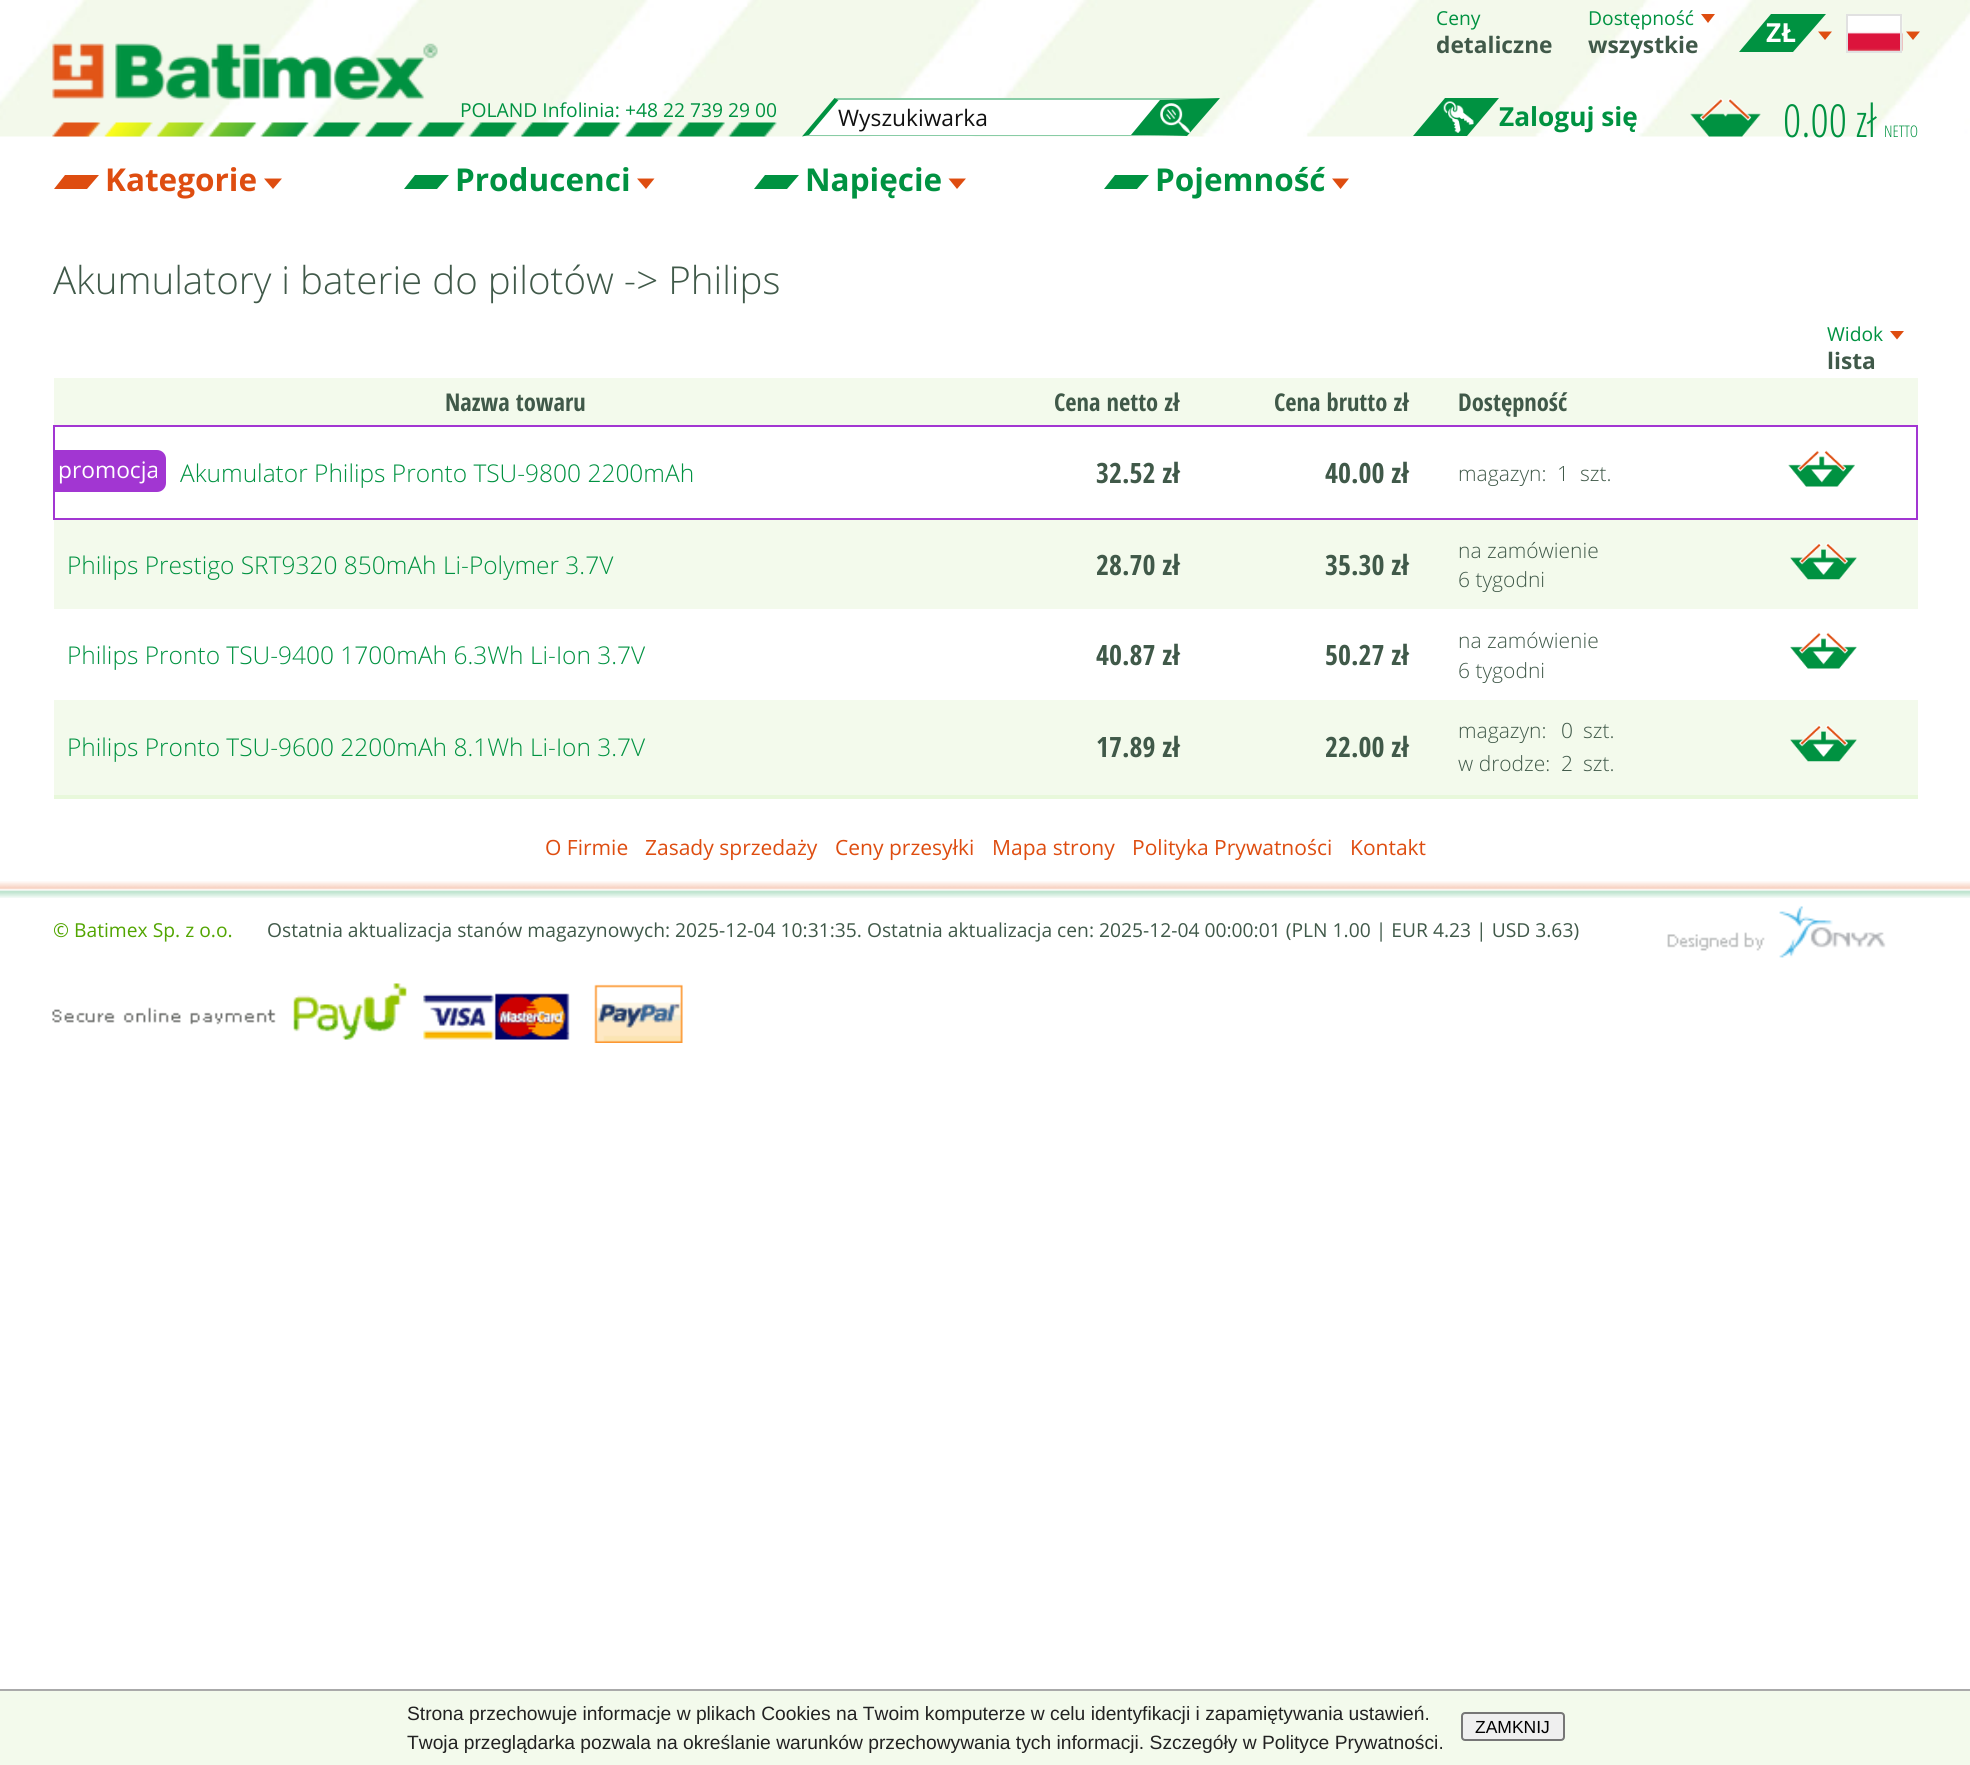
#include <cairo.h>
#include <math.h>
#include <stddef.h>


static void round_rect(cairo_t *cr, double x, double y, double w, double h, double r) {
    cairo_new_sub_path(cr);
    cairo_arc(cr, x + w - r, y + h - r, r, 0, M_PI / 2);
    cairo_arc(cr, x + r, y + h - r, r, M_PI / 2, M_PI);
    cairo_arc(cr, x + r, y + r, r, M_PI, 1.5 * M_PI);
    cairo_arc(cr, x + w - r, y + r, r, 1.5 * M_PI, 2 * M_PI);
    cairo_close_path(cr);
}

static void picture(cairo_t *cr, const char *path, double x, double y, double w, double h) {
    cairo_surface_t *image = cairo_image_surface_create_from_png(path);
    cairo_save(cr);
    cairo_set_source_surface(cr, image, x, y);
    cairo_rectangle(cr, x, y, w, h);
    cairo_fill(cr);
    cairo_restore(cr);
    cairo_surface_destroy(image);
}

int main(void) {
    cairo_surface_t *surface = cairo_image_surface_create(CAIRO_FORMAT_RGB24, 1970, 1765);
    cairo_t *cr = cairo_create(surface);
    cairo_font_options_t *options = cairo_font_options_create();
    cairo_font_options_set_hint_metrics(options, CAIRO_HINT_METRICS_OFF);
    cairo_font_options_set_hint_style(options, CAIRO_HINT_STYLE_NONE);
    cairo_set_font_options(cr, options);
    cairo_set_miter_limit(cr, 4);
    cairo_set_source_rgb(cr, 1, 1, 1);
    cairo_paint(cr);
    picture(cr, "img1.png", 0, 0, 1970, 137);
    picture(cr, "img2.png", 52, 43, 386, 57);
    cairo_select_font_face(cr, "Open Sans", CAIRO_FONT_SLANT_NORMAL, CAIRO_FONT_WEIGHT_NORMAL);
    cairo_set_font_size(cr, 19.25);
    cairo_set_source_rgb(cr, 0, 0.573, 0.255);
    cairo_move_to(cr, 460, 117);
    cairo_show_text(cr, "POLAND Infolinia: +48 22 739 29 00");
    picture(cr, "img3.png", 52, 122, 725, 15);
    cairo_set_source_rgb(cr, 1, 1, 1);
    cairo_new_path(cr);
    cairo_move_to(cr, 838, 100);
    cairo_line_to(cr, 1160, 100);
    cairo_line_to(cr, 1131, 135);
    cairo_line_to(cr, 809, 135);
    cairo_close_path(cr);
    cairo_fill(cr);
    cairo_set_source_rgb(cr, 0.533, 0.8, 0.651);
    cairo_new_path(cr);
    cairo_move_to(cr, 835, 98);
    cairo_line_to(cr, 1220, 98);
    cairo_line_to(cr, 1160, 100);
    cairo_line_to(cr, 838, 100);
    cairo_close_path(cr);
    cairo_fill(cr);
    cairo_set_source_rgb(cr, 0, 0.573, 0.255);
    cairo_new_path(cr);
    cairo_move_to(cr, 1220, 98);
    cairo_line_to(cr, 1187, 136);
    cairo_line_to(cr, 1131, 135);
    cairo_line_to(cr, 1160, 100);
    cairo_close_path(cr);
    cairo_fill(cr);
    cairo_set_source_rgb(cr, 0.533, 0.8, 0.651);
    cairo_new_path(cr);
    cairo_move_to(cr, 1187, 136);
    cairo_line_to(cr, 802, 136);
    cairo_line_to(cr, 809, 135);
    cairo_line_to(cr, 1131, 135);
    cairo_close_path(cr);
    cairo_fill(cr);
    cairo_set_source_rgb(cr, 0, 0.573, 0.255);
    cairo_new_path(cr);
    cairo_move_to(cr, 802, 136.5);
    cairo_line_to(cr, 834.5, 98);
    cairo_line_to(cr, 838.5, 100);
    cairo_line_to(cr, 809, 135);
    cairo_close_path(cr);
    cairo_fill(cr);
    cairo_set_font_size(cr, 22.75);
    cairo_set_source_rgb(cr, 0.067, 0.067, 0.067);
    cairo_move_to(cr, 838, 126);
    cairo_show_text(cr, "Wyszukiwarka");
    picture(cr, "img4.png", 1160, 103, 30, 30);
    cairo_set_font_size(cr, 19.25);
    cairo_set_source_rgb(cr, 0, 0.573, 0.255);
    cairo_move_to(cr, 1436, 25);
    cairo_show_text(cr, "Ceny");
    cairo_select_font_face(cr, "Open Sans", CAIRO_FONT_SLANT_NORMAL, CAIRO_FONT_WEIGHT_BOLD);
    cairo_set_font_size(cr, 22.75);
    cairo_set_source_rgb(cr, 0.251, 0.349, 0.286);
    cairo_move_to(cr, 1436, 53);
    cairo_show_text(cr, "detaliczne");
    cairo_select_font_face(cr, "Open Sans", CAIRO_FONT_SLANT_NORMAL, CAIRO_FONT_WEIGHT_NORMAL);
    cairo_set_font_size(cr, 19.25);
    cairo_set_source_rgb(cr, 0, 0.573, 0.255);
    cairo_move_to(cr, 1588, 25);
    cairo_show_text(cr, "Dostępność");
    cairo_set_source_rgb(cr, 0.871, 0.302, 0.063);
    cairo_new_path(cr);
    cairo_move_to(cr, 1701, 14);
    cairo_line_to(cr, 1715, 14);
    cairo_line_to(cr, 1708, 23);
    cairo_close_path(cr);
    cairo_fill(cr);
    cairo_select_font_face(cr, "Open Sans", CAIRO_FONT_SLANT_NORMAL, CAIRO_FONT_WEIGHT_BOLD);
    cairo_set_font_size(cr, 22.75);
    cairo_set_source_rgb(cr, 0.251, 0.349, 0.286);
    cairo_move_to(cr, 1588, 53);
    cairo_show_text(cr, "wszystkie");
    cairo_set_source_rgb(cr, 0, 0.573, 0.255);
    cairo_new_path(cr);
    cairo_move_to(cr, 1771, 14);
    cairo_line_to(cr, 1826, 14);
    cairo_line_to(cr, 1793, 52);
    cairo_line_to(cr, 1739, 52);
    cairo_close_path(cr);
    cairo_fill(cr);
    cairo_set_font_size(cr, 26.25);
    cairo_set_source_rgb(cr, 1, 1, 1);
    cairo_move_to(cr, 1766, 42);
    cairo_show_text(cr, "ZŁ");
    cairo_set_source_rgb(cr, 0.871, 0.302, 0.063);
    cairo_new_path(cr);
    cairo_move_to(cr, 1818, 31.5);
    cairo_line_to(cr, 1832, 31.5);
    cairo_line_to(cr, 1825, 40);
    cairo_close_path(cr);
    cairo_fill(cr);
    picture(cr, "img5.png", 1848, 15, 55, 36);
    cairo_rectangle(cr, 1847, 15, 54, 37);
    cairo_set_source_rgb(cr, 0.882, 0.882, 0.882);
    cairo_stroke(cr);
    cairo_set_source_rgb(cr, 0.871, 0.302, 0.063);
    cairo_new_path(cr);
    cairo_move_to(cr, 1906, 31.5);
    cairo_line_to(cr, 1920, 31.5);
    cairo_line_to(cr, 1913, 40);
    cairo_close_path(cr);
    cairo_fill(cr);
    cairo_set_source_rgb(cr, 0, 0.573, 0.255);
    cairo_new_path(cr);
    cairo_move_to(cr, 1445, 98);
    cairo_line_to(cr, 1499, 98);
    cairo_line_to(cr, 1467, 136);
    cairo_line_to(cr, 1413, 136);
    cairo_close_path(cr);
    cairo_fill(cr);
    picture(cr, "img6.png", 1443, 101, 31, 32);
    cairo_move_to(cr, 1499, 126);
    cairo_show_text(cr, "Zaloguj się");
    picture(cr, "img7.png", 1690, 98, 71, 39);
    cairo_select_font_face(cr, "Open Sans Condensed Light", CAIRO_FONT_SLANT_NORMAL, CAIRO_FONT_WEIGHT_NORMAL);
    cairo_set_font_size(cr, 45.5);
    cairo_move_to(cr, 1783, 137);
    cairo_show_text(cr, "0.00 zł");
    cairo_set_font_size(cr, 16);
    cairo_move_to(cr, 1884, 137);
    cairo_show_text(cr, "NETTO");
    cairo_set_source_rgb(cr, 0.871, 0.302, 0.063);
    cairo_new_path(cr);
    cairo_move_to(cr, 65, 175);
    cairo_line_to(cr, 99, 175);
    cairo_line_to(cr, 87, 189);
    cairo_line_to(cr, 54, 189);
    cairo_close_path(cr);
    cairo_fill(cr);
    cairo_select_font_face(cr, "Open Sans", CAIRO_FONT_SLANT_NORMAL, CAIRO_FONT_WEIGHT_BOLD);
    cairo_set_font_size(cr, 31.5);
    cairo_move_to(cr, 105, 191);
    cairo_show_text(cr, "Kategorie");
    cairo_new_path(cr);
    cairo_move_to(cr, 264, 178.5);
    cairo_line_to(cr, 282, 178.5);
    cairo_line_to(cr, 273, 189);
    cairo_close_path(cr);
    cairo_fill(cr);
    cairo_set_source_rgb(cr, 0, 0.573, 0.255);
    cairo_new_path(cr);
    cairo_move_to(cr, 415, 175);
    cairo_line_to(cr, 449, 175);
    cairo_line_to(cr, 437, 189);
    cairo_line_to(cr, 404, 189);
    cairo_close_path(cr);
    cairo_fill(cr);
    cairo_move_to(cr, 455, 191);
    cairo_show_text(cr, "Producenci");
    cairo_set_source_rgb(cr, 0.871, 0.302, 0.063);
    cairo_new_path(cr);
    cairo_move_to(cr, 637, 178.5);
    cairo_line_to(cr, 654.5, 178.5);
    cairo_line_to(cr, 646, 189);
    cairo_close_path(cr);
    cairo_fill(cr);
    cairo_set_source_rgb(cr, 0, 0.573, 0.255);
    cairo_new_path(cr);
    cairo_move_to(cr, 765, 175);
    cairo_line_to(cr, 799, 175);
    cairo_line_to(cr, 787, 189);
    cairo_line_to(cr, 754, 189);
    cairo_close_path(cr);
    cairo_fill(cr);
    cairo_move_to(cr, 805, 191);
    cairo_show_text(cr, "Napięcie");
    cairo_set_source_rgb(cr, 0.871, 0.302, 0.063);
    cairo_new_path(cr);
    cairo_move_to(cr, 948.5, 178.5);
    cairo_line_to(cr, 966, 178.5);
    cairo_line_to(cr, 957, 189);
    cairo_close_path(cr);
    cairo_fill(cr);
    cairo_set_source_rgb(cr, 0, 0.573, 0.255);
    cairo_new_path(cr);
    cairo_move_to(cr, 1115, 175);
    cairo_line_to(cr, 1149, 175);
    cairo_line_to(cr, 1137, 189);
    cairo_line_to(cr, 1104, 189);
    cairo_close_path(cr);
    cairo_fill(cr);
    cairo_move_to(cr, 1155, 191);
    cairo_show_text(cr, "Pojemność");
    cairo_set_source_rgb(cr, 0.871, 0.302, 0.063);
    cairo_new_path(cr);
    cairo_move_to(cr, 1332, 178.5);
    cairo_line_to(cr, 1349, 178.5);
    cairo_line_to(cr, 1340.5, 189);
    cairo_close_path(cr);
    cairo_fill(cr);
    cairo_select_font_face(cr, "Open Sans Light", CAIRO_FONT_SLANT_NORMAL, CAIRO_FONT_WEIGHT_NORMAL);
    cairo_set_font_size(cr, 38.5);
    cairo_set_source_rgb(cr, 0.251, 0.349, 0.286);
    cairo_move_to(cr, 53, 294);
    cairo_show_text(cr, "Akumulatory i baterie do pilotów -> Philips");
    cairo_select_font_face(cr, "Open Sans", CAIRO_FONT_SLANT_NORMAL, CAIRO_FONT_WEIGHT_NORMAL);
    cairo_set_font_size(cr, 19.25);
    cairo_set_source_rgb(cr, 0, 0.573, 0.255);
    cairo_move_to(cr, 1827, 341);
    cairo_show_text(cr, "Widok");
    cairo_set_source_rgb(cr, 0.871, 0.302, 0.063);
    cairo_new_path(cr);
    cairo_move_to(cr, 1890, 331);
    cairo_line_to(cr, 1904, 331);
    cairo_line_to(cr, 1897, 339.5);
    cairo_close_path(cr);
    cairo_fill(cr);
    cairo_select_font_face(cr, "Open Sans", CAIRO_FONT_SLANT_NORMAL, CAIRO_FONT_WEIGHT_BOLD);
    cairo_set_font_size(cr, 22.75);
    cairo_set_source_rgb(cr, 0.251, 0.349, 0.286);
    cairo_move_to(cr, 1827, 369);
    cairo_show_text(cr, "lista");
    cairo_set_source_rgb(cr, 0.953, 0.98, 0.925);
    cairo_rectangle(cr, 54, 378, 1864, 47);
    cairo_fill(cr);
    cairo_select_font_face(cr, "Open Sans Condensed", CAIRO_FONT_SLANT_NORMAL, CAIRO_FONT_WEIGHT_BOLD);
    cairo_set_font_size(cr, 24.5);
    cairo_set_source_rgb(cr, 0.251, 0.349, 0.286);
    cairo_move_to(cr, 445, 411);
    cairo_show_text(cr, "Nazwa towaru");
    cairo_move_to(cr, 1054, 411);
    cairo_show_text(cr, "Cena netto zł");
    cairo_move_to(cr, 1274, 411);
    cairo_show_text(cr, "Cena brutto zł");
    cairo_move_to(cr, 1458, 411);
    cairo_show_text(cr, "Dostępność");
    cairo_set_source_rgb(cr, 0.635, 0.212, 0.824);
    cairo_rectangle(cr, 53, 425, 1865, 2);
    cairo_fill(cr);
    cairo_rectangle(cr, 1916, 425, 2, 95);
    cairo_fill(cr);
    cairo_rectangle(cr, 53, 518, 1865, 2);
    cairo_fill(cr);
    cairo_rectangle(cr, 53, 425, 2, 95);
    cairo_fill(cr);
    cairo_new_path(cr);
    cairo_move_to(cr, 54, 450);
    cairo_line_to(cr, 157, 450);
    cairo_curve_to(cr, 162, 450, 166, 454, 166, 459);
    cairo_line_to(cr, 166, 483);
    cairo_curve_to(cr, 166, 488, 162, 492, 157, 492);
    cairo_line_to(cr, 54, 492);
    cairo_close_path(cr);
    cairo_fill(cr);
    cairo_select_font_face(cr, "Open Sans", CAIRO_FONT_SLANT_NORMAL, CAIRO_FONT_WEIGHT_NORMAL);
    cairo_set_font_size(cr, 22.75);
    cairo_set_source_rgb(cr, 1, 1, 1);
    cairo_move_to(cr, 58, 478);
    cairo_show_text(cr, "promocja");
    cairo_select_font_face(cr, "Open Sans Light", CAIRO_FONT_SLANT_NORMAL, CAIRO_FONT_WEIGHT_NORMAL);
    cairo_set_font_size(cr, 24.5);
    cairo_set_source_rgb(cr, 0, 0.573, 0.255);
    cairo_move_to(cr, 180, 482);
    cairo_show_text(cr, "Akumulator Philips Pronto TSU-9800 2200mAh");
    cairo_select_font_face(cr, "Open Sans Condensed", CAIRO_FONT_SLANT_NORMAL, CAIRO_FONT_WEIGHT_BOLD);
    cairo_set_font_size(cr, 28);
    cairo_set_source_rgb(cr, 0.251, 0.349, 0.286);
    cairo_move_to(cr, 1096, 483);
    cairo_show_text(cr, "32.52 zł");
    cairo_move_to(cr, 1325, 483);
    cairo_show_text(cr, "40.00 zł");
    cairo_select_font_face(cr, "Open Sans Light", CAIRO_FONT_SLANT_NORMAL, CAIRO_FONT_WEIGHT_NORMAL);
    cairo_set_font_size(cr, 21);
    cairo_move_to(cr, 1458, 481);
    cairo_show_text(cr, "magazyn:");
    cairo_move_to(cr, 1557, 481);
    cairo_show_text(cr, "1");
    cairo_move_to(cr, 1580, 481);
    cairo_show_text(cr, "szt.");
    picture(cr, "img8.png", 1788, 450, 67, 37);
    cairo_set_source_rgb(cr, 0.953, 0.98, 0.925);
    cairo_rectangle(cr, 54, 520, 1864, 89);
    cairo_fill(cr);
    cairo_set_font_size(cr, 24.5);
    cairo_set_source_rgb(cr, 0, 0.573, 0.255);
    cairo_move_to(cr, 67, 574);
    cairo_show_text(cr, "Philips Prestigo SRT9320 850mAh Li-Polymer 3.7V");
    cairo_select_font_face(cr, "Open Sans Condensed", CAIRO_FONT_SLANT_NORMAL, CAIRO_FONT_WEIGHT_BOLD);
    cairo_set_font_size(cr, 28);
    cairo_set_source_rgb(cr, 0.251, 0.349, 0.286);
    cairo_move_to(cr, 1096, 575);
    cairo_show_text(cr, "28.70 zł");
    cairo_move_to(cr, 1325, 575);
    cairo_show_text(cr, "35.30 zł");
    cairo_select_font_face(cr, "Open Sans Light", CAIRO_FONT_SLANT_NORMAL, CAIRO_FONT_WEIGHT_NORMAL);
    cairo_set_font_size(cr, 21);
    cairo_move_to(cr, 1458, 558);
    cairo_show_text(cr, "na zamówienie");
    cairo_move_to(cr, 1458, 587);
    cairo_show_text(cr, "6 tygodni");
    picture(cr, "img9.png", 1790, 542, 67, 38);
    cairo_set_font_size(cr, 24.5);
    cairo_set_source_rgb(cr, 0, 0.573, 0.255);
    cairo_move_to(cr, 67, 664);
    cairo_show_text(cr, "Philips Pronto TSU-9400 1700mAh 6.3Wh Li-Ion 3.7V");
    cairo_select_font_face(cr, "Open Sans Condensed", CAIRO_FONT_SLANT_NORMAL, CAIRO_FONT_WEIGHT_BOLD);
    cairo_set_font_size(cr, 28);
    cairo_set_source_rgb(cr, 0.251, 0.349, 0.286);
    cairo_move_to(cr, 1096, 665);
    cairo_show_text(cr, "40.87 zł");
    cairo_move_to(cr, 1325, 665);
    cairo_show_text(cr, "50.27 zł");
    cairo_select_font_face(cr, "Open Sans Light", CAIRO_FONT_SLANT_NORMAL, CAIRO_FONT_WEIGHT_NORMAL);
    cairo_set_font_size(cr, 21);
    cairo_move_to(cr, 1458, 648);
    cairo_show_text(cr, "na zamówienie");
    cairo_move_to(cr, 1458, 678);
    cairo_show_text(cr, "6 tygodni");
    picture(cr, "img10.png", 1790, 632, 67, 37);
    cairo_set_source_rgb(cr, 0.953, 0.98, 0.925);
    cairo_rectangle(cr, 54, 700, 1864, 95);
    cairo_fill(cr);
    cairo_set_font_size(cr, 24.5);
    cairo_set_source_rgb(cr, 0, 0.573, 0.255);
    cairo_move_to(cr, 67, 756);
    cairo_show_text(cr, "Philips Pronto TSU-9600 2200mAh 8.1Wh Li-Ion 3.7V");
    cairo_select_font_face(cr, "Open Sans Condensed", CAIRO_FONT_SLANT_NORMAL, CAIRO_FONT_WEIGHT_BOLD);
    cairo_set_font_size(cr, 28);
    cairo_set_source_rgb(cr, 0.251, 0.349, 0.286);
    cairo_move_to(cr, 1096, 757);
    cairo_show_text(cr, "17.89 zł");
    cairo_move_to(cr, 1325, 757);
    cairo_show_text(cr, "22.00 zł");
    cairo_select_font_face(cr, "Open Sans Light", CAIRO_FONT_SLANT_NORMAL, CAIRO_FONT_WEIGHT_NORMAL);
    cairo_set_font_size(cr, 21);
    cairo_move_to(cr, 1458, 738);
    cairo_show_text(cr, "magazyn:");
    cairo_move_to(cr, 1561, 738);
    cairo_show_text(cr, "0");
    cairo_move_to(cr, 1583, 738);
    cairo_show_text(cr, "szt.");
    cairo_move_to(cr, 1458, 771);
    cairo_show_text(cr, "w drodze:");
    cairo_move_to(cr, 1561, 771);
    cairo_show_text(cr, "2");
    cairo_move_to(cr, 1583, 771);
    cairo_show_text(cr, "szt.");
    picture(cr, "img9.png", 1790, 724, 67, 38);
    cairo_set_source_rgb(cr, 0.91, 0.969, 0.859);
    cairo_rectangle(cr, 54, 795, 1864, 4);
    cairo_fill(cr);
    cairo_select_font_face(cr, "Open Sans", CAIRO_FONT_SLANT_NORMAL, CAIRO_FONT_WEIGHT_NORMAL);
    cairo_set_source_rgb(cr, 0.871, 0.302, 0.063);
    cairo_move_to(cr, 545, 855);
    cairo_show_text(cr, "O Firmie");
    cairo_move_to(cr, 645, 855);
    cairo_show_text(cr, "Zasady sprzedaży");
    cairo_move_to(cr, 835, 855);
    cairo_show_text(cr, "Ceny przesyłki");
    cairo_move_to(cr, 992, 855);
    cairo_show_text(cr, "Mapa strony");
    cairo_move_to(cr, 1132, 855);
    cairo_show_text(cr, "Polityka Prywatności");
    cairo_move_to(cr, 1350, 855);
    cairo_show_text(cr, "Kontakt");
    picture(cr, "img11.png", 0, 881, 1970, 17);
    cairo_set_font_size(cr, 19.25);
    cairo_set_source_rgb(cr, 0.322, 0.647, 0.004);
    cairo_move_to(cr, 53, 937);
    cairo_show_text(cr, "© Batimex Sp. z o.o.");
    cairo_set_source_rgb(cr, 0.251, 0.349, 0.286);
    cairo_move_to(cr, 267, 937);
    cairo_show_text(cr, "Ostatnia aktualizacja stanów magazynowych: 2025-12-04 10:31:35. Ostatnia aktualizacja cen: 2025-12-04 00:00:01 (PLN 1.00 | EUR 4.23 | USD 3.63)");
    picture(cr, "img12.png", 1667, 906, 219, 52);
    picture(cr, "img13.png", 52, 983, 631, 60);
    cairo_set_source_rgb(cr, 0.953, 0.98, 0.925);
    cairo_rectangle(cr, 0, 1691, 1970, 74);
    cairo_fill(cr);
    cairo_set_source_rgb(cr, 0.667, 0.667, 0.667);
    cairo_rectangle(cr, 0, 1689, 1970, 2);
    cairo_fill(cr);
    cairo_select_font_face(cr, "Liberation Sans", CAIRO_FONT_SLANT_NORMAL, CAIRO_FONT_WEIGHT_NORMAL);
    cairo_set_source_rgb(cr, 0.133, 0.133, 0.133);
    cairo_move_to(cr, 407, 1720);
    cairo_show_text(cr, "Strona przechowuje informacje w plikach Cookies na Twoim komputerze w celu identyfikacji i zapamiętywania ustawień.");
    cairo_move_to(cr, 407, 1749);
    cairo_show_text(cr, "Twoja przeglądarka pozwala na określanie warunków przechowywania tych informacji. Szczegóły w Polityce Prywatności.");
    cairo_set_source_rgb(cr, 0.937, 0.937, 0.937);
    round_rect(cr, 1462, 1713, 102, 27, 3);
    cairo_fill_preserve(cr);
    cairo_set_source_rgb(cr, 0.463, 0.463, 0.463);
    cairo_stroke(cr);
    cairo_set_font_size(cr, 17.5);
    cairo_set_source_rgb(cr, 0, 0, 0);
    cairo_move_to(cr, 1475, 1733);
    cairo_show_text(cr, "ZAMKNIJ");
    cairo_surface_write_to_png(surface, "page.png");
    cairo_font_options_destroy(options);
    cairo_destroy(cr);
    cairo_surface_destroy(surface);
    return 0;
}
